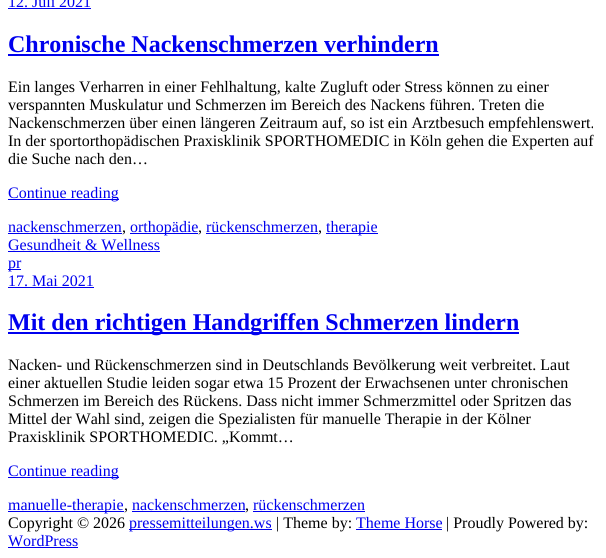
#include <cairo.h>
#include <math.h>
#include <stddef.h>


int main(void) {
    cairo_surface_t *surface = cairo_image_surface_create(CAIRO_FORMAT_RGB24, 606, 558);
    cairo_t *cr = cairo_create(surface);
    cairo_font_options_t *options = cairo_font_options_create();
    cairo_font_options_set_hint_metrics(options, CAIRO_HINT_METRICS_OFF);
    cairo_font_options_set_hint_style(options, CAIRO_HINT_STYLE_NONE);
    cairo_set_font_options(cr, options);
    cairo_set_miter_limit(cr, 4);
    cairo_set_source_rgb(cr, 1, 1, 1);
    cairo_paint(cr);
    cairo_select_font_face(cr, "Liberation Serif", CAIRO_FONT_SLANT_NORMAL, CAIRO_FONT_WEIGHT_NORMAL);
    cairo_set_font_size(cr, 16);
    cairo_set_source_rgb(cr, 0, 0, 0.933);
    cairo_move_to(cr, 8, 7);
    cairo_show_text(cr, "12. Juli 2021");
    cairo_rectangle(cr, 8, 8, 83, 1);
    cairo_fill(cr);
    cairo_select_font_face(cr, "Liberation Serif", CAIRO_FONT_SLANT_NORMAL, CAIRO_FONT_WEIGHT_BOLD);
    cairo_set_font_size(cr, 24);
    cairo_move_to(cr, 8, 52);
    cairo_show_text(cr, "Chronische Nackenschmerzen verhindern");
    cairo_rectangle(cr, 8, 54, 431, 2);
    cairo_fill(cr);
    cairo_select_font_face(cr, "Liberation Serif", CAIRO_FONT_SLANT_NORMAL, CAIRO_FONT_WEIGHT_NORMAL);
    cairo_set_font_size(cr, 16);
    cairo_set_source_rgb(cr, 0, 0, 0);
    cairo_move_to(cr, 8, 92);
    cairo_show_text(cr, "Ein langes Verharren in einer Fehlhaltung, kalte Zugluft oder Stress können zu einer");
    cairo_move_to(cr, 8, 110);
    cairo_show_text(cr, "verspannten Muskulatur und Schmerzen im Bereich des Nackens führen. Treten die");
    cairo_move_to(cr, 8, 128);
    cairo_show_text(cr, "Nackenschmerzen über einen längeren Zeitraum auf, so ist ein Arztbesuch empfehlenswert.");
    cairo_move_to(cr, 8, 146);
    cairo_show_text(cr, "In der sportorthopädischen Praxisklinik SPORTHOMEDIC in Köln gehen die Experten auf");
    cairo_move_to(cr, 8, 164);
    cairo_show_text(cr, "die Suche nach den…");
    cairo_set_source_rgb(cr, 0, 0, 0.933);
    cairo_rectangle(cr, 8, 199, 111, 1);
    cairo_fill(cr);
    cairo_move_to(cr, 8, 198);
    cairo_show_text(cr, "Continue reading");
    cairo_move_to(cr, 8, 232);
    cairo_show_text(cr, "nackenschmerzen");
    cairo_set_source_rgb(cr, 0, 0, 0);
    cairo_move_to(cr, 122, 232);
    cairo_show_text(cr, ",");
    cairo_set_source_rgb(cr, 0, 0, 0.933);
    cairo_rectangle(cr, 8, 233, 114, 1);
    cairo_fill(cr);
    cairo_rectangle(cr, 130, 233, 68, 1);
    cairo_fill(cr);
    cairo_move_to(cr, 130, 232);
    cairo_show_text(cr, "orthopädie");
    cairo_set_source_rgb(cr, 0, 0, 0);
    cairo_move_to(cr, 198, 232);
    cairo_show_text(cr, ",");
    cairo_set_source_rgb(cr, 0, 0, 0.933);
    cairo_move_to(cr, 206, 232);
    cairo_show_text(cr, "rückenschmerzen");
    cairo_set_source_rgb(cr, 0, 0, 0);
    cairo_move_to(cr, 318, 232);
    cairo_show_text(cr, ",");
    cairo_set_source_rgb(cr, 0, 0, 0.933);
    cairo_rectangle(cr, 206, 233, 112, 1);
    cairo_fill(cr);
    cairo_rectangle(cr, 326, 233, 52, 1);
    cairo_fill(cr);
    cairo_move_to(cr, 326, 232);
    cairo_show_text(cr, "therapie");
    cairo_move_to(cr, 8, 250);
    cairo_show_text(cr, "Gesundheit & Wellness");
    cairo_rectangle(cr, 8, 251, 152, 1);
    cairo_fill(cr);
    cairo_rectangle(cr, 8, 269, 13, 1);
    cairo_fill(cr);
    cairo_move_to(cr, 8, 268);
    cairo_show_text(cr, "pr");
    cairo_move_to(cr, 8, 286);
    cairo_show_text(cr, "17. Mai 2021");
    cairo_rectangle(cr, 8, 287, 86, 1);
    cairo_fill(cr);
    cairo_rectangle(cr, 8, 332, 511, 2);
    cairo_fill(cr);
    cairo_select_font_face(cr, "Liberation Serif", CAIRO_FONT_SLANT_NORMAL, CAIRO_FONT_WEIGHT_BOLD);
    cairo_set_font_size(cr, 24);
    cairo_move_to(cr, 8, 330);
    cairo_show_text(cr, "Mit den richtigen Handgriffen Schmerzen lindern");
    cairo_select_font_face(cr, "Liberation Serif", CAIRO_FONT_SLANT_NORMAL, CAIRO_FONT_WEIGHT_NORMAL);
    cairo_set_font_size(cr, 16);
    cairo_set_source_rgb(cr, 0, 0, 0);
    cairo_move_to(cr, 8, 370);
    cairo_show_text(cr, "Nacken- und Rückenschmerzen sind in Deutschlands Bevölkerung weit verbreitet. Laut");
    cairo_move_to(cr, 8, 388);
    cairo_show_text(cr, "einer aktuellen Studie leiden sogar etwa 15 Prozent der Erwachsenen unter chronischen");
    cairo_move_to(cr, 8, 406);
    cairo_show_text(cr, "Schmerzen im Bereich des Rückens. Dass nicht immer Schmerzmittel oder Spritzen das");
    cairo_move_to(cr, 8, 424);
    cairo_show_text(cr, "Mittel der Wahl sind, zeigen die Spezialisten für manuelle Therapie in der Kölner");
    cairo_move_to(cr, 8, 442);
    cairo_show_text(cr, "Praxisklinik SPORTHOMEDIC. „Kommt…");
    cairo_set_source_rgb(cr, 0, 0, 0.933);
    cairo_rectangle(cr, 8, 477, 111, 1);
    cairo_fill(cr);
    cairo_move_to(cr, 8, 476);
    cairo_show_text(cr, "Continue reading");
    cairo_rectangle(cr, 8, 511, 116, 1);
    cairo_fill(cr);
    cairo_move_to(cr, 8, 510);
    cairo_show_text(cr, "manuelle-therapie");
    cairo_set_source_rgb(cr, 0, 0, 0);
    cairo_move_to(cr, 124, 510);
    cairo_show_text(cr, ",");
    cairo_set_source_rgb(cr, 0, 0, 0.933);
    cairo_move_to(cr, 132, 510);
    cairo_show_text(cr, "nackenschmerzen");
    cairo_set_source_rgb(cr, 0, 0, 0);
    cairo_move_to(cr, 245, 510);
    cairo_show_text(cr, ",");
    cairo_set_source_rgb(cr, 0, 0, 0.933);
    cairo_rectangle(cr, 132, 511, 113, 1);
    cairo_fill(cr);
    cairo_rectangle(cr, 253, 511, 112, 1);
    cairo_fill(cr);
    cairo_move_to(cr, 253, 510);
    cairo_show_text(cr, "rückenschmerzen");
    cairo_set_source_rgb(cr, 0, 0, 0);
    cairo_move_to(cr, 8, 528);
    cairo_show_text(cr, "Copyright © 2026");
    cairo_set_source_rgb(cr, 0, 0, 0.933);
    cairo_rectangle(cr, 129, 529, 143, 1);
    cairo_fill(cr);
    cairo_move_to(cr, 129, 528);
    cairo_show_text(cr, "pressemitteilungen.ws");
    cairo_set_source_rgb(cr, 0, 0, 0);
    cairo_move_to(cr, 276, 528);
    cairo_show_text(cr, "| Theme by:");
    cairo_set_source_rgb(cr, 0, 0, 0.933);
    cairo_move_to(cr, 356, 528);
    cairo_show_text(cr, "Theme Horse");
    cairo_rectangle(cr, 356, 529, 86, 1);
    cairo_fill(cr);
    cairo_set_source_rgb(cr, 0, 0, 0);
    cairo_move_to(cr, 446, 528);
    cairo_show_text(cr, "| Proudly Powered by:");
    cairo_set_source_rgb(cr, 0, 0, 0.933);
    cairo_move_to(cr, 8, 546);
    cairo_show_text(cr, "WordPress");
    cairo_rectangle(cr, 8, 547, 70, 1);
    cairo_fill(cr);
    cairo_surface_write_to_png(surface, "page.png");
    cairo_font_options_destroy(options);
    cairo_destroy(cr);
    cairo_surface_destroy(surface);
    return 0;
}
